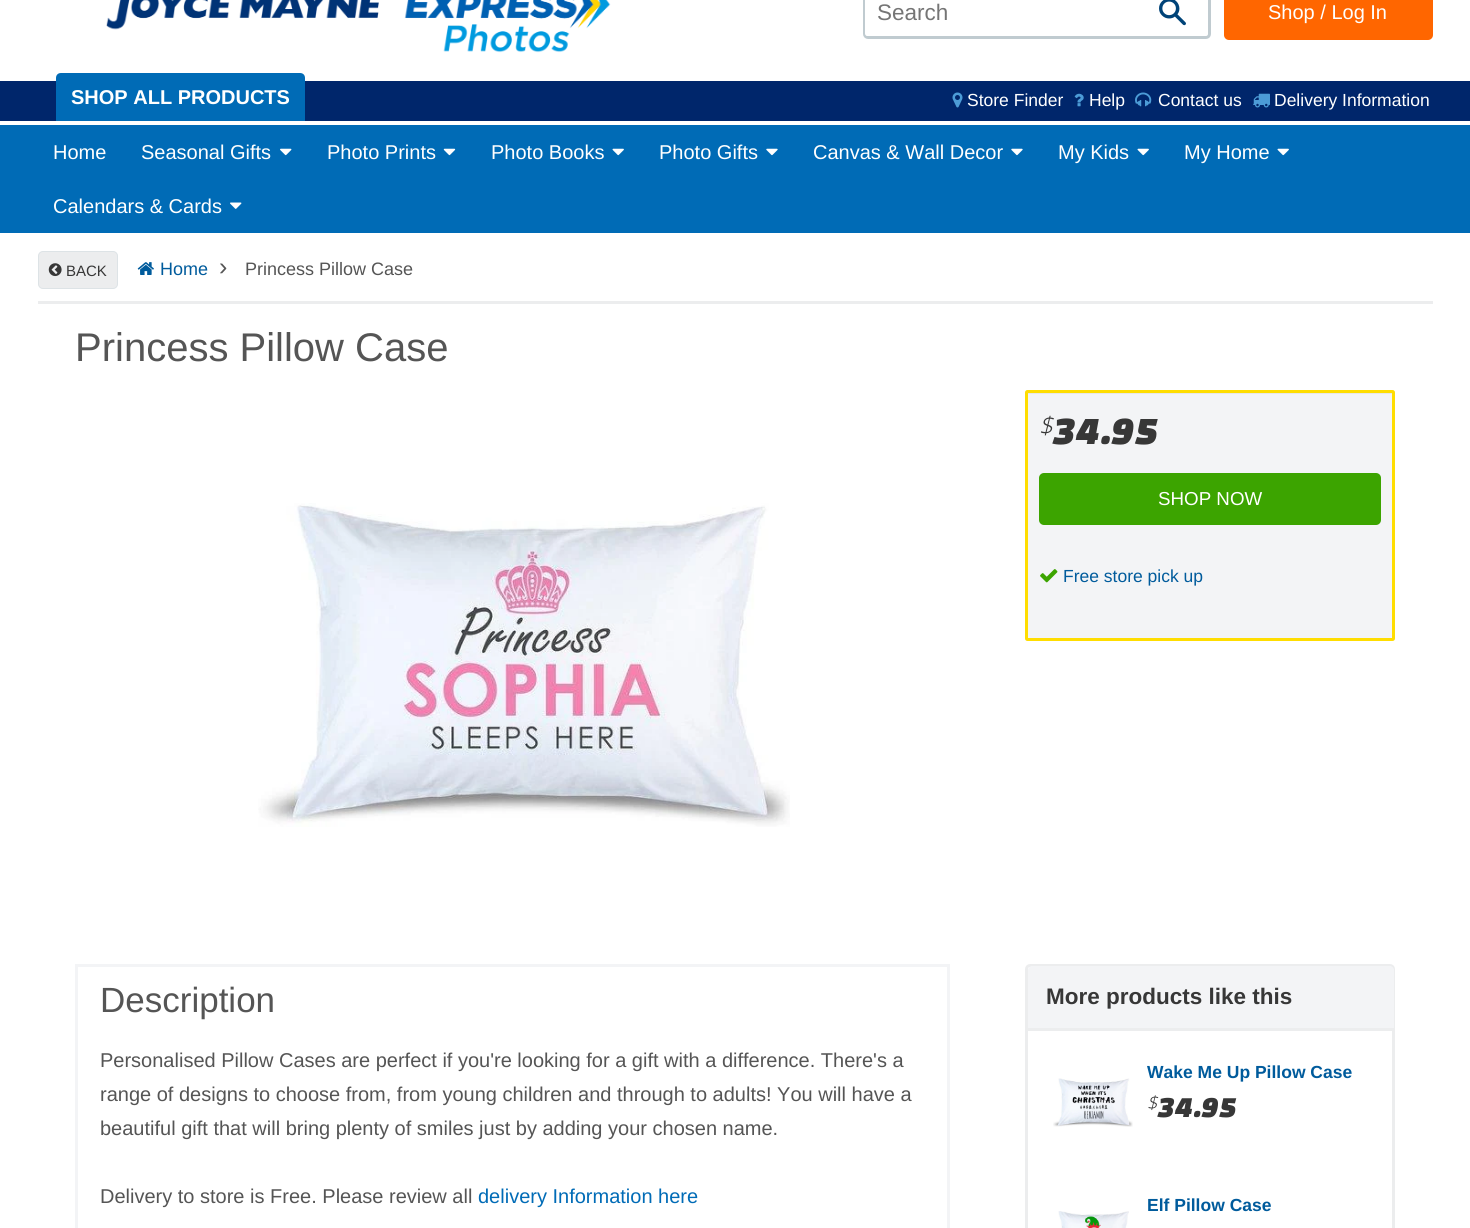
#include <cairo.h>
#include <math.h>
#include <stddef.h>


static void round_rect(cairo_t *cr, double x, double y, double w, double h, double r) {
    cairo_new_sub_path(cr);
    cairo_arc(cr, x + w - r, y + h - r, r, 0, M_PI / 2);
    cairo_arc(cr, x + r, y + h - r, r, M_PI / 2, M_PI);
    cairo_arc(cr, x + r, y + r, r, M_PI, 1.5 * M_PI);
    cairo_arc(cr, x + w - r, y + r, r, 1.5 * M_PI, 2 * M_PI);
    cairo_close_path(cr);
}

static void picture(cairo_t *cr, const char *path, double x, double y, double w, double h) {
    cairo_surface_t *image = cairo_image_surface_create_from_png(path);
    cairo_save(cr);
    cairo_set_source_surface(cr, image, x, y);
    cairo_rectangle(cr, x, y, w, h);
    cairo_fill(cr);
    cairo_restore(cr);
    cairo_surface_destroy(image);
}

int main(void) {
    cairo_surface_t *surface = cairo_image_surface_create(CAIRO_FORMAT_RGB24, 1470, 1228);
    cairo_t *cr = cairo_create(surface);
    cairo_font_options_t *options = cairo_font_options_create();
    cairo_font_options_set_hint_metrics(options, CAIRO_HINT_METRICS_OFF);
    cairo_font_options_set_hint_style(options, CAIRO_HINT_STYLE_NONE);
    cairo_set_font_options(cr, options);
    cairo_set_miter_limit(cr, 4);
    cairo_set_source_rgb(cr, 1, 1, 1);
    cairo_paint(cr);
    round_rect(cr, 864.5, -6.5, 345, 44, 3.5);
    cairo_set_source_rgb(cr, 0.753, 0.796, 0.816);
    cairo_set_line_width(cr, 3);
    cairo_stroke(cr);
    cairo_set_source_rgb(cr, 1, 1, 1);
    cairo_new_path(cr);
    cairo_move_to(cr, 867.5, -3);
    cairo_line_to(cr, 1136, -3);
    cairo_line_to(cr, 1136, 36);
    cairo_line_to(cr, 867.5, 36);
    cairo_curve_to(cr, 866, 36, 865, 35, 865, 33.5);
    cairo_line_to(cr, 865, -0.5);
    cairo_curve_to(cr, 865, -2, 866, -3, 867.5, -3);
    cairo_close_path(cr);
    cairo_fill(cr);
    cairo_select_font_face(cr, "Liberation Sans", CAIRO_FONT_SLANT_NORMAL, CAIRO_FONT_WEIGHT_NORMAL);
    cairo_set_font_size(cr, 22.5);
    cairo_set_source_rgb(cr, 0.459, 0.459, 0.459);
    cairo_move_to(cr, 877, 20);
    cairo_show_text(cr, "Search");
    picture(cr, "img1.png", 1159, 0, 27, 26);
    cairo_set_source_rgb(cr, 1, 0.4, 0);
    round_rect(cr, 1224, -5, 209, 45, 5);
    cairo_fill(cr);
    cairo_set_font_size(cr, 20);
    cairo_set_source_rgb(cr, 1, 1, 1);
    cairo_move_to(cr, 1268, 19);
    cairo_show_text(cr, "Shop / Log In");
    picture(cr, "img2.png", 106, 0, 505, 53);
    cairo_set_source_rgb(cr, 0, 0.149, 0.42);
    cairo_rectangle(cr, 0, 81, 1470, 40);
    cairo_fill(cr);
    cairo_set_source_rgb(cr, 0, 0.42, 0.714);
    cairo_new_path(cr);
    cairo_move_to(cr, 61, 73);
    cairo_line_to(cr, 300, 73);
    cairo_curve_to(cr, 303, 73, 305, 75, 305, 78);
    cairo_line_to(cr, 305, 121);
    cairo_line_to(cr, 56, 121);
    cairo_line_to(cr, 56, 78);
    cairo_curve_to(cr, 56, 75, 58, 73, 61, 73);
    cairo_close_path(cr);
    cairo_fill(cr);
    cairo_select_font_face(cr, "Liberation Sans", CAIRO_FONT_SLANT_NORMAL, CAIRO_FONT_WEIGHT_BOLD);
    cairo_set_source_rgb(cr, 1, 1, 1);
    cairo_move_to(cr, 71, 104);
    cairo_show_text(cr, "SHOP ALL PRODUCTS");
    picture(cr, "img3.png", 952, 92, 11, 16);
    cairo_select_font_face(cr, "Liberation Sans", CAIRO_FONT_SLANT_NORMAL, CAIRO_FONT_WEIGHT_NORMAL);
    cairo_set_font_size(cr, 17.5);
    cairo_move_to(cr, 967, 106);
    cairo_show_text(cr, "Store Finder");
    picture(cr, "img4.png", 1074, 93, 10, 14);
    cairo_move_to(cr, 1089, 106);
    cairo_show_text(cr, "Help");
    picture(cr, "img5.png", 1135, 92, 17, 15);
    cairo_move_to(cr, 1158, 106);
    cairo_show_text(cr, "Contact us");
    picture(cr, "img6.png", 1253, 93, 17, 15);
    cairo_move_to(cr, 1274, 106);
    cairo_show_text(cr, "Delivery Information");
    cairo_set_source_rgb(cr, 0, 0.42, 0.714);
    cairo_rectangle(cr, 0, 125, 1470, 108);
    cairo_fill(cr);
    cairo_set_font_size(cr, 20);
    cairo_set_source_rgb(cr, 1, 1, 1);
    cairo_move_to(cr, 53, 159);
    cairo_show_text(cr, "Home");
    cairo_move_to(cr, 141, 159);
    cairo_show_text(cr, "Seasonal Gifts");
    picture(cr, "img7.png", 280, 148, 12, 8);
    cairo_move_to(cr, 327, 159);
    cairo_show_text(cr, "Photo Prints");
    picture(cr, "img8.png", 443, 148, 13, 8);
    cairo_move_to(cr, 491, 159);
    cairo_show_text(cr, "Photo Books");
    picture(cr, "img9.png", 612, 148, 12, 8);
    cairo_move_to(cr, 659, 159);
    cairo_show_text(cr, "Photo Gifts");
    picture(cr, "img10.png", 766, 148, 12, 8);
    cairo_move_to(cr, 813, 159);
    cairo_show_text(cr, "Canvas & Wall Decor");
    picture(cr, "img10.png", 1011, 148, 12, 8);
    cairo_move_to(cr, 1058, 159);
    cairo_show_text(cr, "My Kids");
    picture(cr, "img9.png", 1137, 148, 12, 8);
    cairo_move_to(cr, 1184, 159);
    cairo_show_text(cr, "My Home");
    picture(cr, "img9.png", 1277, 148, 12, 8);
    cairo_move_to(cr, 53, 213);
    cairo_show_text(cr, "Calendars & Cards");
    picture(cr, "img11.png", 230, 202, 12, 7);
    cairo_set_source_rgb(cr, 0.922, 0.929, 0.933);
    cairo_rectangle(cr, 38, 301, 1395, 3);
    cairo_fill(cr);
    round_rect(cr, 38.5, 251.5, 79, 37, 4.5);
    cairo_fill_preserve(cr);
    cairo_set_source_rgb(cr, 0.867, 0.89, 0.902);
    cairo_set_line_width(cr, 1);
    cairo_stroke(cr);
    picture(cr, "img12.png", 48, 263, 14, 14);
    cairo_set_font_size(cr, 15);
    cairo_set_source_rgb(cr, 0.216, 0.216, 0.216);
    cairo_move_to(cr, 66, 276);
    cairo_show_text(cr, "BACK");
    picture(cr, "img13.png", 137, 262, 17, 13);
    cairo_set_font_size(cr, 18);
    cairo_set_source_rgb(cr, 0, 0.357, 0.612);
    cairo_move_to(cr, 160, 275);
    cairo_show_text(cr, "Home");
    cairo_set_font_size(cr, 25);
    cairo_set_source_rgb(cr, 0.333, 0.333, 0.333);
    cairo_move_to(cr, 219, 275);
    cairo_show_text(cr, "›");
    cairo_set_font_size(cr, 18);
    cairo_move_to(cr, 245, 275);
    cairo_show_text(cr, "Princess Pillow Case");
    cairo_set_font_size(cr, 40);
    cairo_move_to(cr, 75, 361);
    cairo_show_text(cr, "Princess Pillow Case");
    picture(cr, "img14.png", 258, 503, 532, 324);
    cairo_set_source_rgb(cr, 0.953, 0.957, 0.961);
    round_rect(cr, 1025, 390, 370, 251, 2.5);
    cairo_fill(cr);
    cairo_set_source_rgb(cr, 0.906, 0.91, 0.914);
    cairo_rectangle(cr, 1028, 393, 365, 1);
    cairo_fill(cr);
    round_rect(cr, 1026.5, 391.5, 367, 248, 1);
    cairo_set_source_rgb(cr, 1, 0.867, 0);
    cairo_set_line_width(cr, 3);
    cairo_stroke(cr);
    cairo_select_font_face(cr, "Noto Sans Light", CAIRO_FONT_SLANT_ITALIC, CAIRO_FONT_WEIGHT_NORMAL);
    cairo_set_font_size(cr, 24);
    cairo_set_source_rgb(cr, 0.216, 0.216, 0.216);
    cairo_move_to(cr, 1039, 434);
    cairo_show_text(cr, "$");
    cairo_select_font_face(cr, "Changa One", CAIRO_FONT_SLANT_ITALIC, CAIRO_FONT_WEIGHT_NORMAL);
    cairo_set_font_size(cr, 40);
    cairo_move_to(cr, 1052, 444);
    cairo_show_text(cr, "34.95");
    cairo_set_source_rgb(cr, 0.235, 0.643, 0);
    round_rect(cr, 1039, 473, 342, 52, 5);
    cairo_fill(cr);
    cairo_select_font_face(cr, "Liberation Sans", CAIRO_FONT_SLANT_NORMAL, CAIRO_FONT_WEIGHT_NORMAL);
    cairo_set_font_size(cr, 18.75);
    cairo_set_source_rgb(cr, 1, 1, 1);
    cairo_move_to(cr, 1158, 505);
    cairo_show_text(cr, "SHOP NOW");
    picture(cr, "img15.png", 1040, 569, 18, 14);
    cairo_set_font_size(cr, 17.5);
    cairo_set_source_rgb(cr, 0, 0.357, 0.612);
    cairo_move_to(cr, 1063, 582);
    cairo_show_text(cr, "Free store pick up");
    cairo_rectangle(cr, 76.5, 965.5, 872, 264);
    cairo_set_source_rgb(cr, 0.953, 0.957, 0.961);
    cairo_stroke(cr);
    cairo_set_font_size(cr, 35);
    cairo_set_source_rgb(cr, 0.333, 0.333, 0.333);
    cairo_move_to(cr, 100, 1012);
    cairo_show_text(cr, "Description");
    cairo_set_font_size(cr, 20);
    cairo_move_to(cr, 100, 1067);
    cairo_show_text(cr, "Personalised Pillow Cases are perfect if you're looking for a gift with a difference. There's a");
    cairo_move_to(cr, 100, 1101);
    cairo_show_text(cr, "range of designs to choose from, from young children and through to adults! You will have a");
    cairo_move_to(cr, 100, 1135);
    cairo_show_text(cr, "beautiful gift that will bring plenty of smiles just by adding your chosen name.");
    cairo_move_to(cr, 100, 1203);
    cairo_show_text(cr, "Delivery to store is Free. Please review all");
    cairo_set_source_rgb(cr, 0, 0.42, 0.714);
    cairo_move_to(cr, 478, 1203);
    cairo_show_text(cr, "delivery Information here");
    round_rect(cr, 1026.5, 965.5, 367, 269, 3.5);
    cairo_set_source_rgb(cr, 0.922, 0.929, 0.933);
    cairo_stroke(cr);
    cairo_set_source_rgb(cr, 0.953, 0.957, 0.961);
    cairo_new_path(cr);
    cairo_move_to(cr, 1032, 966);
    cairo_line_to(cr, 1390, 966);
    cairo_curve_to(cr, 1392, 966, 1394, 968, 1394, 970);
    cairo_line_to(cr, 1394, 1030);
    cairo_line_to(cr, 1028, 1030);
    cairo_line_to(cr, 1028, 970);
    cairo_curve_to(cr, 1028, 968, 1030, 966, 1032, 966);
    cairo_close_path(cr);
    cairo_fill(cr);
    cairo_set_source_rgb(cr, 0.922, 0.929, 0.933);
    cairo_rectangle(cr, 1028, 1028, 366, 3);
    cairo_fill(cr);
    cairo_select_font_face(cr, "Liberation Sans", CAIRO_FONT_SLANT_NORMAL, CAIRO_FONT_WEIGHT_BOLD);
    cairo_set_font_size(cr, 22.5);
    cairo_set_source_rgb(cr, 0.216, 0.216, 0.216);
    cairo_move_to(cr, 1046, 1004);
    cairo_show_text(cr, "More products like this");
    picture(cr, "img16.png", 1053, 1078, 80, 49);
    cairo_set_font_size(cr, 17.5);
    cairo_set_source_rgb(cr, 0, 0.357, 0.612);
    cairo_move_to(cr, 1147, 1078);
    cairo_show_text(cr, "Wake Me Up Pillow Case");
    cairo_select_font_face(cr, "Noto Sans Light", CAIRO_FONT_SLANT_ITALIC, CAIRO_FONT_WEIGHT_NORMAL);
    cairo_set_font_size(cr, 18);
    cairo_set_source_rgb(cr, 0.216, 0.216, 0.216);
    cairo_move_to(cr, 1147, 1109);
    cairo_show_text(cr, "$");
    cairo_select_font_face(cr, "Changa One", CAIRO_FONT_SLANT_ITALIC, CAIRO_FONT_WEIGHT_NORMAL);
    cairo_set_font_size(cr, 30);
    cairo_move_to(cr, 1157, 1117);
    cairo_show_text(cr, "34.95");
    cairo_select_font_face(cr, "Liberation Sans", CAIRO_FONT_SLANT_NORMAL, CAIRO_FONT_WEIGHT_BOLD);
    cairo_set_font_size(cr, 17.5);
    cairo_set_source_rgb(cr, 0, 0.357, 0.612);
    cairo_move_to(cr, 1147, 1211);
    cairo_show_text(cr, "Elf Pillow Case");
    picture(cr, "img17.png", 1058, 1211, 71, 17);
    cairo_surface_write_to_png(surface, "page.png");
    cairo_font_options_destroy(options);
    cairo_destroy(cr);
    cairo_surface_destroy(surface);
    return 0;
}
